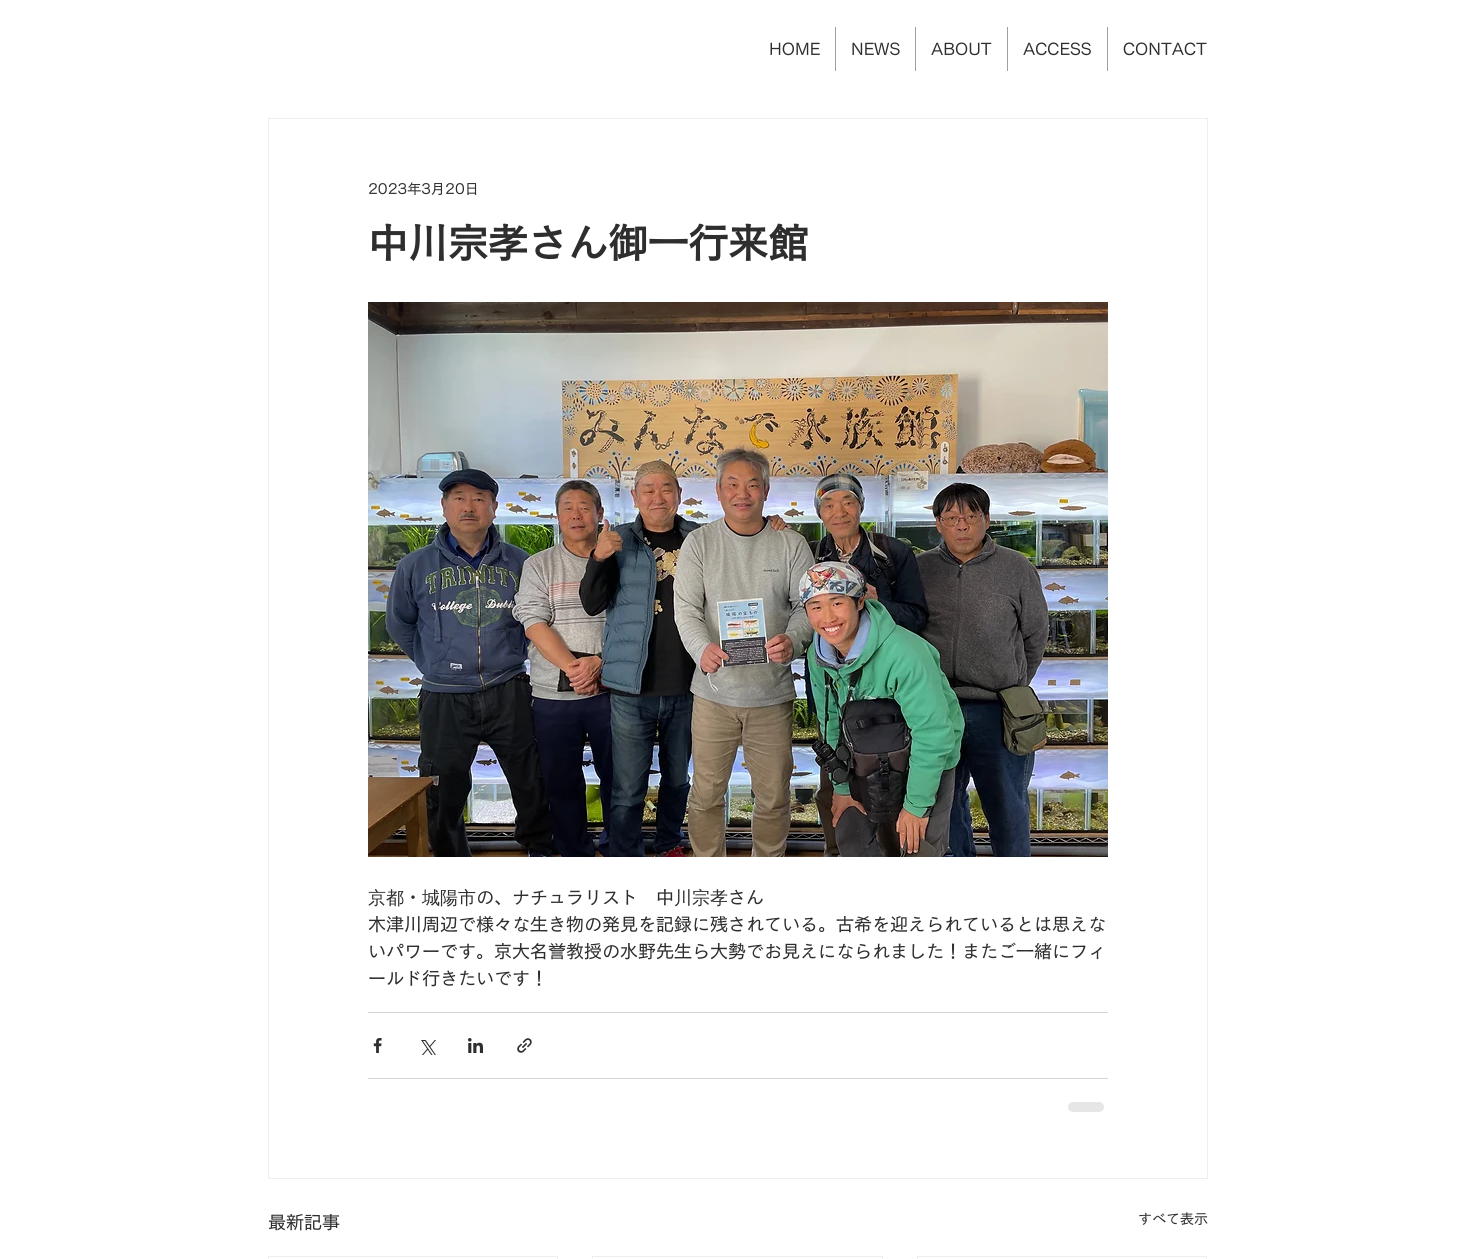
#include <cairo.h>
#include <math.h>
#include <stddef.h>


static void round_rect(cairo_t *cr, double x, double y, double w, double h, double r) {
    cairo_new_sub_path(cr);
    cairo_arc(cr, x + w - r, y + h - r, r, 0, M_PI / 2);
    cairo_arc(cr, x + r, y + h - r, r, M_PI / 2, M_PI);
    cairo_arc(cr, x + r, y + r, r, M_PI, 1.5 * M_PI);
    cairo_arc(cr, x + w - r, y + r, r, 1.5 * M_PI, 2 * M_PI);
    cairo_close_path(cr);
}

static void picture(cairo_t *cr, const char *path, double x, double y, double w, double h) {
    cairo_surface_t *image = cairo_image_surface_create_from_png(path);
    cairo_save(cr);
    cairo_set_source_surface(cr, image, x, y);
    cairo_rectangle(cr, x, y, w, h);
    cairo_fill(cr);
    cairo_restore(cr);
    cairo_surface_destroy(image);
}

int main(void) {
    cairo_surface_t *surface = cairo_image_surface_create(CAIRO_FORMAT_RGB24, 1475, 1259);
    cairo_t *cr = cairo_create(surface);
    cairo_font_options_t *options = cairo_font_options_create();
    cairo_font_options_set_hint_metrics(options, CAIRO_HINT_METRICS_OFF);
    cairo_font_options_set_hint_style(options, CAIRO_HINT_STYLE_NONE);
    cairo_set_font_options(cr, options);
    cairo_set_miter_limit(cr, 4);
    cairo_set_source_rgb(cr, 1, 1, 1);
    cairo_paint(cr);
    cairo_select_font_face(cr, "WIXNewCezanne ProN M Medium", CAIRO_FONT_SLANT_NORMAL, CAIRO_FONT_WEIGHT_NORMAL);
    cairo_set_font_size(cr, 16);
    cairo_set_source_rgb(cr, 0.184, 0.18, 0.18);
    cairo_move_to(cr, 769, 55);
    cairo_show_text(cr, "HOME");
    cairo_set_source_rgb(cr, 0.627, 0.627, 0.624);
    cairo_rectangle(cr, 835, 27, 1, 44);
    cairo_fill(cr);
    cairo_set_source_rgb(cr, 0.184, 0.18, 0.18);
    cairo_move_to(cr, 851, 55);
    cairo_show_text(cr, "NEWS");
    cairo_set_source_rgb(cr, 0.627, 0.627, 0.624);
    cairo_rectangle(cr, 915, 27, 1, 44);
    cairo_fill(cr);
    cairo_set_source_rgb(cr, 0.184, 0.18, 0.18);
    cairo_move_to(cr, 931, 55);
    cairo_show_text(cr, "ABOUT");
    cairo_set_source_rgb(cr, 0.627, 0.627, 0.624);
    cairo_rectangle(cr, 1007, 27, 1, 44);
    cairo_fill(cr);
    cairo_set_source_rgb(cr, 0.184, 0.18, 0.18);
    cairo_move_to(cr, 1023, 55);
    cairo_show_text(cr, "ACCESS");
    cairo_set_source_rgb(cr, 0.627, 0.627, 0.624);
    cairo_rectangle(cr, 1107, 27, 1, 44);
    cairo_fill(cr);
    cairo_set_source_rgb(cr, 0.184, 0.18, 0.18);
    cairo_move_to(cr, 1123, 55);
    cairo_show_text(cr, "CONTACT");
    cairo_rectangle(cr, 268.5, 118.5, 939, 1060);
    cairo_set_source_rgb(cr, 0.933, 0.933, 0.933);
    cairo_set_line_width(cr, 1);
    cairo_stroke(cr);
    cairo_set_font_size(cr, 14);
    cairo_set_source_rgb(cr, 0.184, 0.18, 0.18);
    cairo_move_to(cr, 368, 194);
    cairo_show_text(cr, "2023年3月20日");
    cairo_select_font_face(cr, "WIXNewCezanne ProN M", CAIRO_FONT_SLANT_NORMAL, CAIRO_FONT_WEIGHT_BOLD);
    cairo_set_font_size(cr, 40);
    cairo_move_to(cr, 368, 258);
    cairo_show_text(cr, "中川宗孝さん御一行来館");
    picture(cr, "img1.png", 368, 302, 740, 555);
    cairo_select_font_face(cr, "WenQuanYi Zen Hei Medium", CAIRO_FONT_SLANT_NORMAL, CAIRO_FONT_WEIGHT_NORMAL);
    cairo_set_font_size(cr, 18);
    cairo_move_to(cr, 368, 904);
    cairo_show_text(cr, "京都");
    cairo_select_font_face(cr, "WIXNewCezanne ProN M Medium", CAIRO_FONT_SLANT_NORMAL, CAIRO_FONT_WEIGHT_NORMAL);
    cairo_move_to(cr, 404, 904);
    cairo_show_text(cr, "・");
    cairo_select_font_face(cr, "WenQuanYi Zen Hei Medium", CAIRO_FONT_SLANT_NORMAL, CAIRO_FONT_WEIGHT_NORMAL);
    cairo_move_to(cr, 422, 904);
    cairo_show_text(cr, "城陽市");
    cairo_select_font_face(cr, "WIXNewCezanne ProN M Medium", CAIRO_FONT_SLANT_NORMAL, CAIRO_FONT_WEIGHT_NORMAL);
    cairo_move_to(cr, 476, 904);
    cairo_show_text(cr, "の、ナチュラリスト");
    cairo_move_to(cr, 656, 904);
    cairo_show_text(cr, "中");
    cairo_select_font_face(cr, "WenQuanYi Zen Hei Medium", CAIRO_FONT_SLANT_NORMAL, CAIRO_FONT_WEIGHT_NORMAL);
    cairo_move_to(cr, 674, 904);
    cairo_show_text(cr, "川宗孝");
    cairo_select_font_face(cr, "WIXNewCezanne ProN M Medium", CAIRO_FONT_SLANT_NORMAL, CAIRO_FONT_WEIGHT_NORMAL);
    cairo_move_to(cr, 728, 904);
    cairo_show_text(cr, "さん");
    cairo_move_to(cr, 368, 931);
    cairo_show_text(cr, "木津川周辺で様々な生き物の発見を記録に残されている。古希を迎えられているとは思えな");
    cairo_move_to(cr, 368, 958);
    cairo_show_text(cr, "いパワーです。京大名誉教授の水野先生ら大勢でお見えになられました！またご一緒にフィ");
    cairo_move_to(cr, 368, 985);
    cairo_show_text(cr, "ールド行きたいです！");
    cairo_set_source_rgb(cr, 0.835, 0.835, 0.835);
    cairo_rectangle(cr, 368, 1012, 740, 1);
    cairo_fill(cr);
    picture(cr, "img2.png", 373, 1038, 9, 15);
    picture(cr, "img3.png", 421, 1040, 15, 15);
    picture(cr, "img4.png", 468, 1038, 15, 15);
    picture(cr, "img5.png", 517, 1038, 15, 15);
    cairo_rectangle(cr, 368, 1078, 740, 1);
    cairo_fill(cr);
    cairo_set_source_rgb(cr, 0.902, 0.902, 0.902);
    round_rect(cr, 1068, 1102, 36, 10, 5);
    cairo_fill(cr);
    cairo_set_source_rgb(cr, 0.184, 0.18, 0.18);
    cairo_move_to(cr, 268, 1229);
    cairo_show_text(cr, "最新記事");
    cairo_set_font_size(cr, 14);
    cairo_move_to(cr, 1138, 1224);
    cairo_show_text(cr, "すべて表示");
    cairo_rectangle(cr, 268.5, 1256.5, 289, 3);
    cairo_set_source_rgb(cr, 0.933, 0.933, 0.933);
    cairo_stroke(cr);
    cairo_rectangle(cr, 592.5, 1256.5, 290, 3);
    cairo_stroke(cr);
    cairo_rectangle(cr, 917.5, 1256.5, 289, 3);
    cairo_stroke(cr);
    cairo_surface_write_to_png(surface, "page.png");
    cairo_font_options_destroy(options);
    cairo_destroy(cr);
    cairo_surface_destroy(surface);
    return 0;
}
